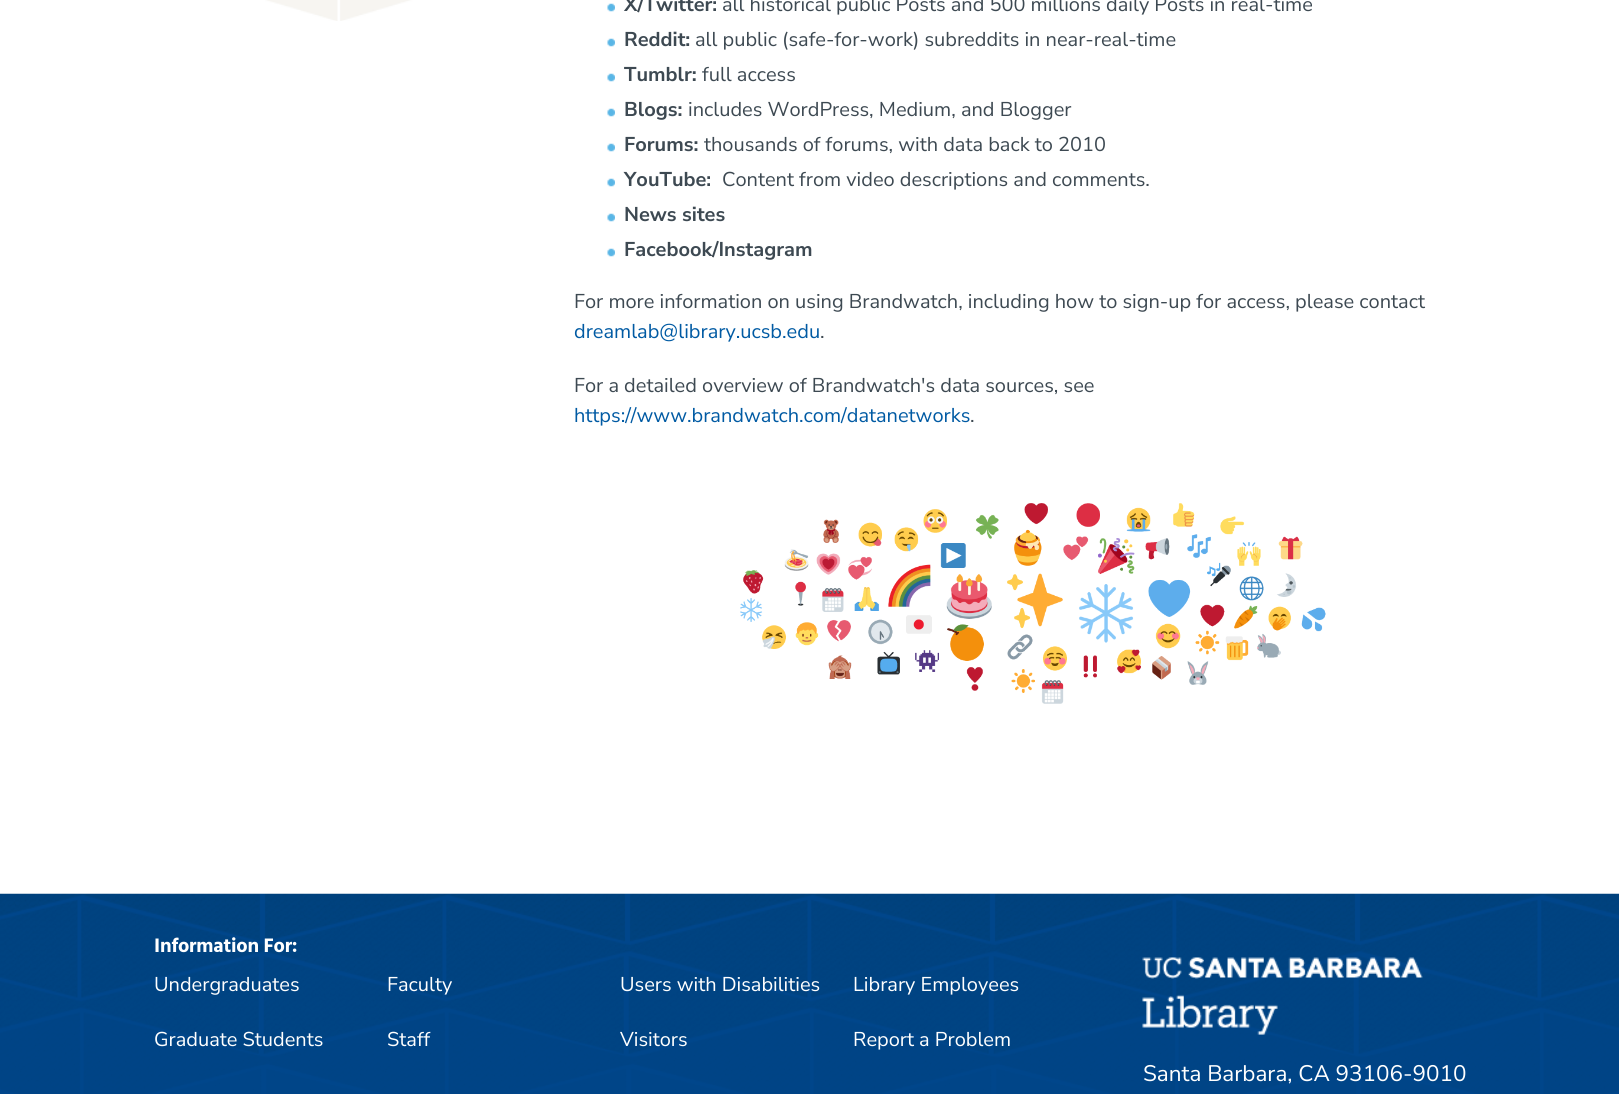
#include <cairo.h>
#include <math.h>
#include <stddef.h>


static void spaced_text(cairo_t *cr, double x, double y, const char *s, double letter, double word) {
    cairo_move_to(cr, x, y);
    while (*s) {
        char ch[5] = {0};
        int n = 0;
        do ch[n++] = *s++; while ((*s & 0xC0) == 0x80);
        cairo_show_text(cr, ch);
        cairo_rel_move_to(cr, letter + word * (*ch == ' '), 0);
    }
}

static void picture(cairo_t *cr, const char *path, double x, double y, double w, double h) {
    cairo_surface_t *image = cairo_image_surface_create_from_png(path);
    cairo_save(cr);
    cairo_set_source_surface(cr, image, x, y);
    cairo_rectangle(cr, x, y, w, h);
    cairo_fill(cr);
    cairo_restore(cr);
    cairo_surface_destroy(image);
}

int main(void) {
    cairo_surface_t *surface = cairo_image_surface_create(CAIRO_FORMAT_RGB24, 1619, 1094);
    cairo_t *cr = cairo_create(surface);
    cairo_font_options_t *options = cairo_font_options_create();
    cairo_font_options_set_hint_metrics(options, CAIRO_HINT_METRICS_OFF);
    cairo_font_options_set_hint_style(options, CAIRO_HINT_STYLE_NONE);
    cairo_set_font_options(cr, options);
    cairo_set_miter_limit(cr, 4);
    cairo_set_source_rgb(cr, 1, 1, 1);
    cairo_paint(cr);
    picture(cr, "img1.png", 154, 0, 367, 21);
    picture(cr, "img2.png", 607, 3, 8, 9);
    cairo_select_font_face(cr, "Nunito Sans", CAIRO_FONT_SLANT_NORMAL, CAIRO_FONT_WEIGHT_BOLD);
    cairo_set_font_size(cr, 20);
    cairo_set_source_rgb(cr, 0.239, 0.286, 0.322);
    cairo_move_to(cr, 624, 11);
    cairo_show_text(cr, "X/Twitter:");
    cairo_select_font_face(cr, "Nunito Sans", CAIRO_FONT_SLANT_NORMAL, CAIRO_FONT_WEIGHT_NORMAL);
    cairo_move_to(cr, 722, 11);
    cairo_show_text(cr, "all historical public Posts and 500 millions daily Posts in real-time");
    picture(cr, "img2.png", 607, 38, 8, 9);
    cairo_select_font_face(cr, "Nunito Sans", CAIRO_FONT_SLANT_NORMAL, CAIRO_FONT_WEIGHT_BOLD);
    cairo_move_to(cr, 624, 46);
    cairo_show_text(cr, "Reddit:");
    cairo_select_font_face(cr, "Nunito Sans", CAIRO_FONT_SLANT_NORMAL, CAIRO_FONT_WEIGHT_NORMAL);
    cairo_move_to(cr, 695, 46);
    cairo_show_text(cr, "all public (safe-for-work) subreddits in near-real-time");
    picture(cr, "img2.png", 607, 73, 8, 9);
    cairo_select_font_face(cr, "Nunito Sans", CAIRO_FONT_SLANT_NORMAL, CAIRO_FONT_WEIGHT_BOLD);
    cairo_move_to(cr, 624, 81);
    cairo_show_text(cr, "Tumblr:");
    cairo_select_font_face(cr, "Nunito Sans", CAIRO_FONT_SLANT_NORMAL, CAIRO_FONT_WEIGHT_NORMAL);
    cairo_move_to(cr, 702, 81);
    cairo_show_text(cr, "full access");
    picture(cr, "img2.png", 607, 108, 8, 9);
    cairo_select_font_face(cr, "Nunito Sans", CAIRO_FONT_SLANT_NORMAL, CAIRO_FONT_WEIGHT_BOLD);
    cairo_move_to(cr, 624, 116);
    cairo_show_text(cr, "Blogs:");
    cairo_select_font_face(cr, "Nunito Sans", CAIRO_FONT_SLANT_NORMAL, CAIRO_FONT_WEIGHT_NORMAL);
    cairo_move_to(cr, 688, 116);
    cairo_show_text(cr, "includes WordPress, Medium, and Blogger");
    picture(cr, "img2.png", 607, 143, 8, 9);
    cairo_select_font_face(cr, "Nunito Sans", CAIRO_FONT_SLANT_NORMAL, CAIRO_FONT_WEIGHT_BOLD);
    cairo_move_to(cr, 624, 151);
    cairo_show_text(cr, "Forums:");
    cairo_select_font_face(cr, "Nunito Sans", CAIRO_FONT_SLANT_NORMAL, CAIRO_FONT_WEIGHT_NORMAL);
    cairo_move_to(cr, 704, 151);
    cairo_show_text(cr, "thousands of forums, with data back to 2010");
    picture(cr, "img2.png", 607, 178, 8, 9);
    cairo_select_font_face(cr, "Nunito Sans", CAIRO_FONT_SLANT_NORMAL, CAIRO_FONT_WEIGHT_BOLD);
    cairo_move_to(cr, 624, 186);
    cairo_show_text(cr, "YouTube:");
    cairo_select_font_face(cr, "Nunito Sans", CAIRO_FONT_SLANT_NORMAL, CAIRO_FONT_WEIGHT_NORMAL);
    cairo_move_to(cr, 722, 186);
    cairo_show_text(cr, "Content from video descriptions and comments.");
    picture(cr, "img2.png", 607, 213, 8, 9);
    cairo_select_font_face(cr, "Nunito Sans", CAIRO_FONT_SLANT_NORMAL, CAIRO_FONT_WEIGHT_BOLD);
    cairo_move_to(cr, 624, 221);
    cairo_show_text(cr, "News sites");
    picture(cr, "img2.png", 607, 248, 8, 9);
    cairo_move_to(cr, 624, 256);
    cairo_show_text(cr, "Facebook/Instagram");
    cairo_select_font_face(cr, "Nunito Sans", CAIRO_FONT_SLANT_NORMAL, CAIRO_FONT_WEIGHT_NORMAL);
    cairo_move_to(cr, 574, 308);
    cairo_show_text(cr, "For more information on using Brandwatch, including how to sign-up for access, please contact");
    cairo_set_source_rgb(cr, 0, 0.353, 0.639);
    cairo_move_to(cr, 574, 338);
    cairo_show_text(cr, "dreamlab@library.ucsb.edu");
    cairo_set_source_rgb(cr, 0.239, 0.286, 0.322);
    cairo_move_to(cr, 820, 338);
    cairo_show_text(cr, ".");
    cairo_move_to(cr, 574, 392);
    cairo_show_text(cr, "For a detailed overview of Brandwatch's data sources, see");
    cairo_set_source_rgb(cr, 0, 0.353, 0.639);
    cairo_move_to(cr, 574, 422);
    cairo_show_text(cr, "https://www.brandwatch.com/datanetworks");
    cairo_set_source_rgb(cr, 0.239, 0.286, 0.322);
    cairo_move_to(cr, 970, 422);
    cairo_show_text(cr, ".");
    picture(cr, "img3.png", 740, 503, 586, 201);
    picture(cr, "img4.png", 0, 893, 1619, 201);
    cairo_select_font_face(cr, "Hind", CAIRO_FONT_SLANT_NORMAL, CAIRO_FONT_WEIGHT_BOLD);
    cairo_set_source_rgb(cr, 1, 1, 1);
    spaced_text(cr, 154, 952, "Information For:", -0.2, 0);
    cairo_select_font_face(cr, "Nunito Sans", CAIRO_FONT_SLANT_NORMAL, CAIRO_FONT_WEIGHT_NORMAL);
    cairo_move_to(cr, 154, 991);
    cairo_show_text(cr, "Undergraduates");
    cairo_move_to(cr, 387, 991);
    cairo_show_text(cr, "Faculty");
    cairo_move_to(cr, 620, 991);
    cairo_show_text(cr, "Users with Disabilities");
    cairo_move_to(cr, 853, 991);
    cairo_show_text(cr, "Library Employees");
    cairo_move_to(cr, 154, 1046);
    cairo_show_text(cr, "Graduate Students");
    cairo_move_to(cr, 387, 1046);
    cairo_show_text(cr, "Staff");
    cairo_move_to(cr, 620, 1046);
    cairo_show_text(cr, "Visitors");
    cairo_move_to(cr, 853, 1046);
    cairo_show_text(cr, "Report a Problem");
    picture(cr, "img5.png", 1142, 957, 281, 78);
    cairo_set_font_size(cr, 22.5);
    cairo_move_to(cr, 1143, 1081);
    cairo_show_text(cr, "Santa Barbara, CA 93106-9010");
    cairo_surface_write_to_png(surface, "page.png");
    cairo_font_options_destroy(options);
    cairo_destroy(cr);
    cairo_surface_destroy(surface);
    return 0;
}
